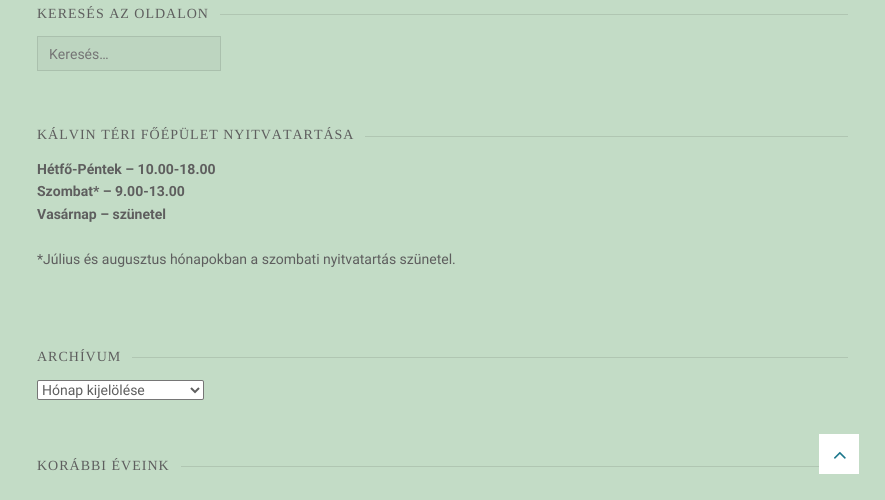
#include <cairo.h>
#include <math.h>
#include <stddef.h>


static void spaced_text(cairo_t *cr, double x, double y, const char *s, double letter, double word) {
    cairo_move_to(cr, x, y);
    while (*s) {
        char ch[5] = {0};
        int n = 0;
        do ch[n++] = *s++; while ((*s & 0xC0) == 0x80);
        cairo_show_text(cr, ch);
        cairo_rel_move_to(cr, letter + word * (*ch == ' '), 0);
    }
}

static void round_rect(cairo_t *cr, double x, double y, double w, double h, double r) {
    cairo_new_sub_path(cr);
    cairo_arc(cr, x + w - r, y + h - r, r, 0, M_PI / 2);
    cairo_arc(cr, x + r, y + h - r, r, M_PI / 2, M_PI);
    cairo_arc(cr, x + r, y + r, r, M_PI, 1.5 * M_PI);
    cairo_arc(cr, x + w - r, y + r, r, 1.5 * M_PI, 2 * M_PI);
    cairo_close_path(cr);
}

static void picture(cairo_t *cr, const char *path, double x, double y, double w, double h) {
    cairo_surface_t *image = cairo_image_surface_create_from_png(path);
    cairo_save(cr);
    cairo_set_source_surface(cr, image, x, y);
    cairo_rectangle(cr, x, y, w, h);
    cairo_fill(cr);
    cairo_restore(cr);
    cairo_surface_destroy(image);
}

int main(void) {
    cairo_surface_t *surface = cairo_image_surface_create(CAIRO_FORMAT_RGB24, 885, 500);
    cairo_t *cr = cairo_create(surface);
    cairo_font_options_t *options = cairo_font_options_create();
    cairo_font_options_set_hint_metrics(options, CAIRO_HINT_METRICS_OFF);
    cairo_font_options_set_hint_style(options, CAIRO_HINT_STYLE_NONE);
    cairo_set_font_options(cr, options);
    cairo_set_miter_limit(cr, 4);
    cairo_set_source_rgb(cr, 0.765, 0.863, 0.776);
    cairo_paint(cr);
    cairo_select_font_face(cr, "Liberation Serif", CAIRO_FONT_SLANT_NORMAL, CAIRO_FONT_WEIGHT_NORMAL);
    cairo_set_font_size(cr, 14);
    cairo_set_source_rgb(cr, 0.369, 0.369, 0.369);
    spaced_text(cr, 37, 18, "KERESÉS AZ OLDALON", 1, 0);
    cairo_set_source_rgb(cr, 0.69, 0.776, 0.698);
    cairo_rectangle(cr, 220, 14, 628, 1);
    cairo_fill(cr);
    cairo_set_source_rgb(cr, 0.741, 0.835, 0.753);
    cairo_rectangle(cr, 37.5, 36.5, 183, 34);
    cairo_fill_preserve(cr);
    cairo_set_source_rgb(cr, 0.667, 0.753, 0.678);
    cairo_set_line_width(cr, 1);
    cairo_stroke(cr);
    cairo_select_font_face(cr, "Roboto", CAIRO_FONT_SLANT_NORMAL, CAIRO_FONT_WEIGHT_NORMAL);
    cairo_set_source_rgb(cr, 0.459, 0.459, 0.459);
    cairo_move_to(cr, 49, 59);
    cairo_show_text(cr, "Keresés…");
    cairo_select_font_face(cr, "Liberation Serif", CAIRO_FONT_SLANT_NORMAL, CAIRO_FONT_WEIGHT_NORMAL);
    cairo_set_source_rgb(cr, 0.369, 0.369, 0.369);
    spaced_text(cr, 37, 139, "KÁLVIN TÉRI FŐÉPÜLET NYITVATARTÁSA", 1, 0);
    cairo_set_source_rgb(cr, 0.69, 0.776, 0.698);
    cairo_rectangle(cr, 365, 136, 483, 1);
    cairo_fill(cr);
    cairo_select_font_face(cr, "Roboto", CAIRO_FONT_SLANT_NORMAL, CAIRO_FONT_WEIGHT_BOLD);
    cairo_set_source_rgb(cr, 0.369, 0.369, 0.369);
    cairo_move_to(cr, 37, 174);
    cairo_show_text(cr, "Hétfő-Péntek – 10.00-18.00");
    cairo_move_to(cr, 37, 196);
    cairo_show_text(cr, "Szombat* – 9.00-13.00");
    cairo_move_to(cr, 37, 219);
    cairo_show_text(cr, "Vasárnap – szünetel");
    cairo_select_font_face(cr, "Roboto", CAIRO_FONT_SLANT_NORMAL, CAIRO_FONT_WEIGHT_NORMAL);
    cairo_move_to(cr, 37, 264);
    cairo_show_text(cr, "*Július és augusztus hónapokban a szombati nyitvatartás szünetel.");
    cairo_select_font_face(cr, "Liberation Serif", CAIRO_FONT_SLANT_NORMAL, CAIRO_FONT_WEIGHT_NORMAL);
    spaced_text(cr, 37, 361, "ARCHÍVUM", 1, 0);
    cairo_set_source_rgb(cr, 0.69, 0.776, 0.698);
    cairo_rectangle(cr, 132, 357, 716, 1);
    cairo_fill(cr);
    cairo_set_source_rgb(cr, 1, 1, 1);
    round_rect(cr, 37.5, 380.5, 166, 19, 1.5);
    cairo_fill_preserve(cr);
    cairo_set_source_rgb(cr, 0.463, 0.463, 0.463);
    cairo_stroke(cr);
    cairo_new_path(cr);
    cairo_move_to(cr, 191, 388);
    cairo_line_to(cr, 195, 392);
    cairo_line_to(cr, 199, 388);
    cairo_set_source_rgb(cr, 0.369, 0.369, 0.369);
    cairo_set_line_width(cr, 2);
    cairo_stroke(cr);
    cairo_select_font_face(cr, "Roboto", CAIRO_FONT_SLANT_NORMAL, CAIRO_FONT_WEIGHT_NORMAL);
    cairo_move_to(cr, 42, 395);
    cairo_show_text(cr, "Hónap kijelölése");
    cairo_select_font_face(cr, "Liberation Serif", CAIRO_FONT_SLANT_NORMAL, CAIRO_FONT_WEIGHT_NORMAL);
    spaced_text(cr, 37, 470, "KORÁBBI ÉVEINK", 1, 0);
    cairo_set_source_rgb(cr, 0.69, 0.776, 0.698);
    cairo_rectangle(cr, 181, 466, 638, 1);
    cairo_fill(cr);
    cairo_set_source_rgb(cr, 1, 1, 1);
    cairo_rectangle(cr, 819, 434, 40, 40);
    cairo_fill(cr);
    picture(cr, "img1.png", 834, 451, 12, 8);
    cairo_surface_write_to_png(surface, "page.png");
    cairo_font_options_destroy(options);
    cairo_destroy(cr);
    cairo_surface_destroy(surface);
    return 0;
}
